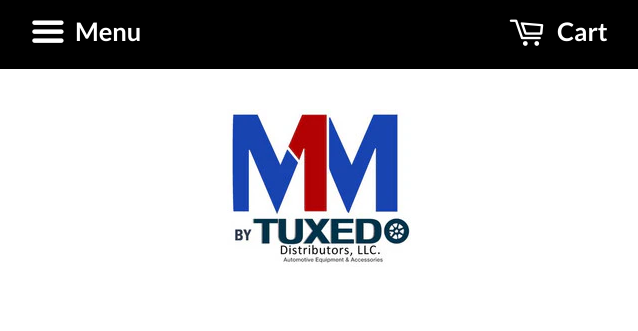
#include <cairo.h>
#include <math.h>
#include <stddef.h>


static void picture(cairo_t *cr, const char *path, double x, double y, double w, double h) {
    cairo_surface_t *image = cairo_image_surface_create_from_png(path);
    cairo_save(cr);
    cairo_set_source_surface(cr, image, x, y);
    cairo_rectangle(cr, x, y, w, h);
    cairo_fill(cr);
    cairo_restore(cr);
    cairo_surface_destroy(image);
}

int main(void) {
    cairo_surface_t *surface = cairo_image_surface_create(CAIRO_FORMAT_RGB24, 638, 331);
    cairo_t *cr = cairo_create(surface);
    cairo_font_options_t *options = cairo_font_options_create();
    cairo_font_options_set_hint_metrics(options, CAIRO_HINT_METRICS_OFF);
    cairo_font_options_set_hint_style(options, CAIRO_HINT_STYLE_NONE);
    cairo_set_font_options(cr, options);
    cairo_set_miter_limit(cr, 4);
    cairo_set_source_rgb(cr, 1, 1, 1);
    cairo_paint(cr);
    cairo_set_source_rgb(cr, 0, 0, 0);
    cairo_rectangle(cr, 0, 0, 638, 69);
    cairo_fill(cr);
    picture(cr, "img1.png", 32, 20, 32, 23);
    cairo_select_font_face(cr, "Lato", CAIRO_FONT_SLANT_NORMAL, CAIRO_FONT_WEIGHT_BOLD);
    cairo_set_font_size(cr, 25.5);
    cairo_set_source_rgb(cr, 1, 1, 1);
    cairo_move_to(cr, 75, 41);
    cairo_show_text(cr, "Menu");
    picture(cr, "img2.png", 509, 19, 35, 27);
    cairo_move_to(cr, 557, 41);
    cairo_show_text(cr, "Cart");
    picture(cr, "img3.png", 227, 109, 184, 158);
    cairo_surface_write_to_png(surface, "page.png");
    cairo_font_options_destroy(options);
    cairo_destroy(cr);
    cairo_surface_destroy(surface);
    return 0;
}
